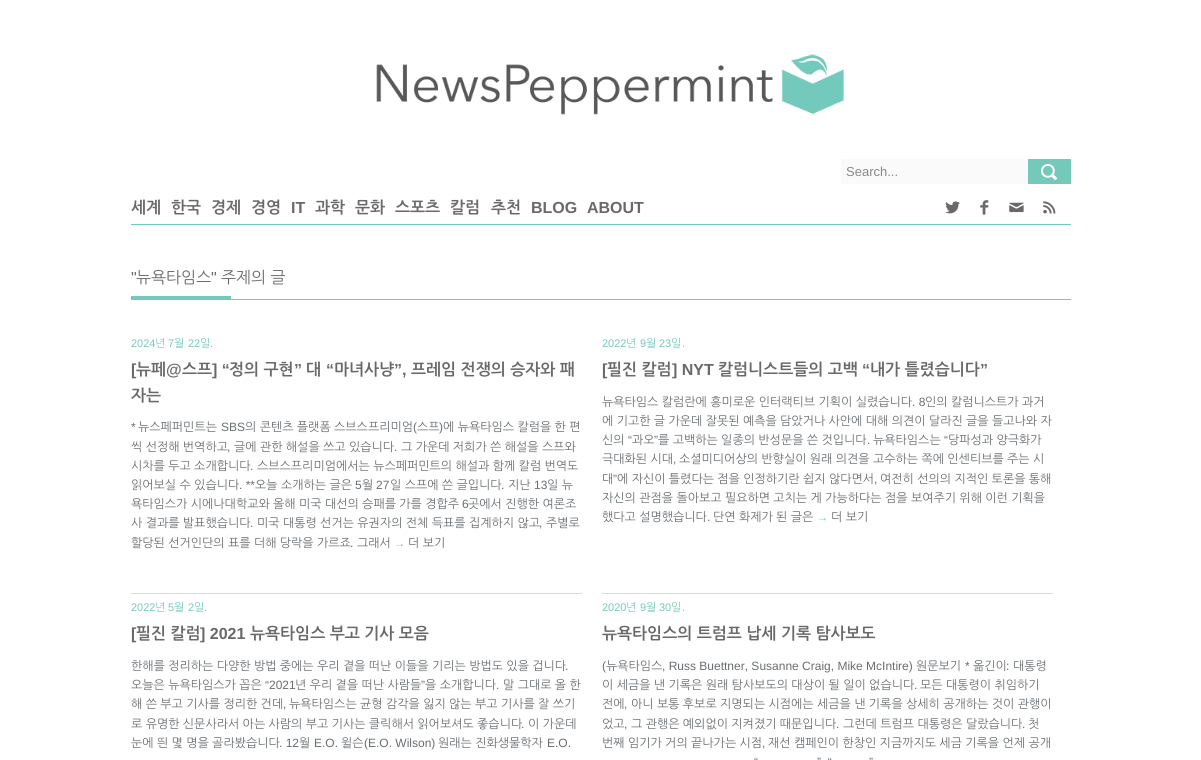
#include <cairo.h>
#include <math.h>
#include <stddef.h>


static void picture(cairo_t *cr, const char *path, double x, double y, double w, double h) {
    cairo_surface_t *image = cairo_image_surface_create_from_png(path);
    cairo_save(cr);
    cairo_set_source_surface(cr, image, x, y);
    cairo_rectangle(cr, x, y, w, h);
    cairo_fill(cr);
    cairo_restore(cr);
    cairo_surface_destroy(image);
}

int main(void) {
    cairo_surface_t *surface = cairo_image_surface_create(CAIRO_FORMAT_RGB24, 1201, 760);
    cairo_t *cr = cairo_create(surface);
    cairo_font_options_t *options = cairo_font_options_create();
    cairo_font_options_set_hint_metrics(options, CAIRO_HINT_METRICS_OFF);
    cairo_font_options_set_hint_style(options, CAIRO_HINT_STYLE_NONE);
    cairo_set_font_options(cr, options);
    cairo_set_miter_limit(cr, 4);
    cairo_set_source_rgb(cr, 1, 1, 1);
    cairo_paint(cr);
    picture(cr, "img1.png", 376, 54, 468, 61);
    cairo_set_source_rgb(cr, 0.455, 0.788, 0.733);
    cairo_rectangle(cr, 131, 224, 940, 1);
    cairo_fill(cr);
    cairo_set_source_rgb(cr, 0.98, 0.98, 0.98);
    cairo_rectangle(cr, 841, 159, 187, 25);
    cairo_fill(cr);
    cairo_select_font_face(cr, "Liberation Sans", CAIRO_FONT_SLANT_NORMAL, CAIRO_FONT_WEIGHT_NORMAL);
    cairo_set_font_size(cr, 13);
    cairo_set_source_rgb(cr, 0.537, 0.537, 0.537);
    cairo_move_to(cr, 846, 176);
    cairo_show_text(cr, "Search...");
    cairo_set_source_rgb(cr, 0.455, 0.788, 0.733);
    cairo_rectangle(cr, 1028, 159, 43, 25);
    cairo_fill(cr);
    picture(cr, "img2.png", 1041, 164, 16, 16);
    cairo_select_font_face(cr, "NanumGothic", CAIRO_FONT_SLANT_NORMAL, CAIRO_FONT_WEIGHT_BOLD);
    cairo_set_font_size(cr, 16);
    cairo_set_source_rgb(cr, 0.412, 0.412, 0.412);
    cairo_move_to(cr, 131, 213);
    cairo_show_text(cr, "세계");
    cairo_move_to(cr, 171, 213);
    cairo_show_text(cr, "한국");
    cairo_move_to(cr, 211, 213);
    cairo_show_text(cr, "경제");
    cairo_move_to(cr, 251, 213);
    cairo_show_text(cr, "경영");
    cairo_select_font_face(cr, "Liberation Sans", CAIRO_FONT_SLANT_NORMAL, CAIRO_FONT_WEIGHT_BOLD);
    cairo_move_to(cr, 291, 213);
    cairo_show_text(cr, "IT");
    cairo_select_font_face(cr, "NanumGothic", CAIRO_FONT_SLANT_NORMAL, CAIRO_FONT_WEIGHT_BOLD);
    cairo_move_to(cr, 315, 213);
    cairo_show_text(cr, "과학");
    cairo_move_to(cr, 355, 213);
    cairo_show_text(cr, "문화");
    cairo_move_to(cr, 395, 213);
    cairo_show_text(cr, "스포츠");
    cairo_move_to(cr, 450, 213);
    cairo_show_text(cr, "칼럼");
    cairo_move_to(cr, 491, 213);
    cairo_show_text(cr, "추천");
    cairo_select_font_face(cr, "Liberation Sans", CAIRO_FONT_SLANT_NORMAL, CAIRO_FONT_WEIGHT_BOLD);
    cairo_move_to(cr, 531, 213);
    cairo_show_text(cr, "BLOG");
    cairo_move_to(cr, 587, 213);
    cairo_show_text(cr, "ABOUT");
    picture(cr, "img3.png", 945, 201, 15, 13);
    picture(cr, "img4.png", 980, 200, 9, 15);
    picture(cr, "img5.png", 1009, 202, 15, 11);
    picture(cr, "img6.png", 1043, 201, 13, 13);
    cairo_set_source_rgb(cr, 0.455, 0.788, 0.733);
    cairo_rectangle(cr, 231, 299, 840, 1);
    cairo_fill(cr);
    cairo_select_font_face(cr, "Liberation Sans", CAIRO_FONT_SLANT_NORMAL, CAIRO_FONT_WEIGHT_NORMAL);
    cairo_set_source_rgb(cr, 0.412, 0.412, 0.412);
    cairo_move_to(cr, 131, 283);
    cairo_show_text(cr, "\"");
    cairo_select_font_face(cr, "NanumGothic", CAIRO_FONT_SLANT_NORMAL, CAIRO_FONT_WEIGHT_NORMAL);
    cairo_move_to(cr, 136, 283);
    cairo_show_text(cr, "뉴욕타임스");
    cairo_select_font_face(cr, "Liberation Sans", CAIRO_FONT_SLANT_NORMAL, CAIRO_FONT_WEIGHT_NORMAL);
    cairo_move_to(cr, 211, 283);
    cairo_show_text(cr, "\"");
    cairo_select_font_face(cr, "NanumGothic", CAIRO_FONT_SLANT_NORMAL, CAIRO_FONT_WEIGHT_NORMAL);
    cairo_move_to(cr, 221, 283);
    cairo_show_text(cr, "주제의 글");
    cairo_set_source_rgb(cr, 0.455, 0.788, 0.733);
    cairo_rectangle(cr, 131, 296, 100, 4);
    cairo_fill(cr);
    cairo_select_font_face(cr, "Liberation Sans", CAIRO_FONT_SLANT_NORMAL, CAIRO_FONT_WEIGHT_NORMAL);
    cairo_set_font_size(cr, 11);
    cairo_move_to(cr, 131, 347);
    cairo_show_text(cr, "2024");
    cairo_select_font_face(cr, "NanumGothic", CAIRO_FONT_SLANT_NORMAL, CAIRO_FONT_WEIGHT_NORMAL);
    cairo_move_to(cr, 155, 347);
    cairo_show_text(cr, "년");
    cairo_select_font_face(cr, "Liberation Sans", CAIRO_FONT_SLANT_NORMAL, CAIRO_FONT_WEIGHT_NORMAL);
    cairo_move_to(cr, 168, 347);
    cairo_show_text(cr, "7");
    cairo_select_font_face(cr, "NanumGothic", CAIRO_FONT_SLANT_NORMAL, CAIRO_FONT_WEIGHT_NORMAL);
    cairo_move_to(cr, 174, 347);
    cairo_show_text(cr, "월");
    cairo_select_font_face(cr, "Liberation Sans", CAIRO_FONT_SLANT_NORMAL, CAIRO_FONT_WEIGHT_NORMAL);
    cairo_move_to(cr, 188, 347);
    cairo_show_text(cr, "22");
    cairo_select_font_face(cr, "NanumGothic", CAIRO_FONT_SLANT_NORMAL, CAIRO_FONT_WEIGHT_NORMAL);
    cairo_move_to(cr, 200, 347);
    cairo_show_text(cr, "일");
    cairo_select_font_face(cr, "Liberation Sans", CAIRO_FONT_SLANT_NORMAL, CAIRO_FONT_WEIGHT_NORMAL);
    cairo_move_to(cr, 210, 347);
    cairo_show_text(cr, ".");
    cairo_select_font_face(cr, "Liberation Sans", CAIRO_FONT_SLANT_NORMAL, CAIRO_FONT_WEIGHT_BOLD);
    cairo_set_font_size(cr, 16);
    cairo_set_source_rgb(cr, 0.412, 0.412, 0.412);
    cairo_move_to(cr, 131, 375);
    cairo_show_text(cr, "[");
    cairo_select_font_face(cr, "NanumGothic", CAIRO_FONT_SLANT_NORMAL, CAIRO_FONT_WEIGHT_BOLD);
    cairo_move_to(cr, 136, 375);
    cairo_show_text(cr, "뉴페");
    cairo_select_font_face(cr, "Liberation Sans", CAIRO_FONT_SLANT_NORMAL, CAIRO_FONT_WEIGHT_BOLD);
    cairo_move_to(cr, 166, 375);
    cairo_show_text(cr, "@");
    cairo_select_font_face(cr, "NanumGothic", CAIRO_FONT_SLANT_NORMAL, CAIRO_FONT_WEIGHT_BOLD);
    cairo_move_to(cr, 182, 375);
    cairo_show_text(cr, "스프");
    cairo_select_font_face(cr, "Liberation Sans", CAIRO_FONT_SLANT_NORMAL, CAIRO_FONT_WEIGHT_BOLD);
    cairo_move_to(cr, 212, 375);
    cairo_show_text(cr, "] “");
    cairo_select_font_face(cr, "NanumGothic", CAIRO_FONT_SLANT_NORMAL, CAIRO_FONT_WEIGHT_BOLD);
    cairo_move_to(cr, 229, 375);
    cairo_show_text(cr, "정의 구현");
    cairo_select_font_face(cr, "Liberation Sans", CAIRO_FONT_SLANT_NORMAL, CAIRO_FONT_WEIGHT_BOLD);
    cairo_move_to(cr, 294, 375);
    cairo_show_text(cr, "”");
    cairo_select_font_face(cr, "NanumGothic", CAIRO_FONT_SLANT_NORMAL, CAIRO_FONT_WEIGHT_BOLD);
    cairo_move_to(cr, 306, 375);
    cairo_show_text(cr, "대");
    cairo_select_font_face(cr, "Liberation Sans", CAIRO_FONT_SLANT_NORMAL, CAIRO_FONT_WEIGHT_BOLD);
    cairo_move_to(cr, 326, 375);
    cairo_show_text(cr, "“");
    cairo_select_font_face(cr, "NanumGothic", CAIRO_FONT_SLANT_NORMAL, CAIRO_FONT_WEIGHT_BOLD);
    cairo_move_to(cr, 334, 375);
    cairo_show_text(cr, "마녀사냥");
    cairo_select_font_face(cr, "Liberation Sans", CAIRO_FONT_SLANT_NORMAL, CAIRO_FONT_WEIGHT_BOLD);
    cairo_move_to(cr, 394, 375);
    cairo_show_text(cr, "”,");
    cairo_select_font_face(cr, "NanumGothic", CAIRO_FONT_SLANT_NORMAL, CAIRO_FONT_WEIGHT_BOLD);
    cairo_move_to(cr, 411, 375);
    cairo_show_text(cr, "프레임 전쟁의 승자와 패");
    cairo_move_to(cr, 131, 401);
    cairo_show_text(cr, "자는");
    cairo_select_font_face(cr, "Liberation Sans", CAIRO_FONT_SLANT_NORMAL, CAIRO_FONT_WEIGHT_NORMAL);
    cairo_set_font_size(cr, 12);
    cairo_set_source_rgb(cr, 0.408, 0.427, 0.443);
    cairo_move_to(cr, 131, 431);
    cairo_show_text(cr, "*");
    cairo_select_font_face(cr, "NanumGothic", CAIRO_FONT_SLANT_NORMAL, CAIRO_FONT_WEIGHT_NORMAL);
    cairo_move_to(cr, 138, 431);
    cairo_show_text(cr, "뉴스페퍼민트는");
    cairo_select_font_face(cr, "Liberation Sans", CAIRO_FONT_SLANT_NORMAL, CAIRO_FONT_WEIGHT_NORMAL);
    cairo_move_to(cr, 221, 431);
    cairo_show_text(cr, "SBS");
    cairo_select_font_face(cr, "NanumGothic", CAIRO_FONT_SLANT_NORMAL, CAIRO_FONT_WEIGHT_NORMAL);
    cairo_move_to(cr, 245, 431);
    cairo_show_text(cr, "의 콘텐츠 플랫폼 스브스프리미엄");
    cairo_select_font_face(cr, "Liberation Sans", CAIRO_FONT_SLANT_NORMAL, CAIRO_FONT_WEIGHT_NORMAL);
    cairo_move_to(cr, 413, 431);
    cairo_show_text(cr, "(");
    cairo_select_font_face(cr, "NanumGothic", CAIRO_FONT_SLANT_NORMAL, CAIRO_FONT_WEIGHT_NORMAL);
    cairo_move_to(cr, 417, 431);
    cairo_show_text(cr, "스프");
    cairo_select_font_face(cr, "Liberation Sans", CAIRO_FONT_SLANT_NORMAL, CAIRO_FONT_WEIGHT_NORMAL);
    cairo_move_to(cr, 439, 431);
    cairo_show_text(cr, ")");
    cairo_select_font_face(cr, "NanumGothic", CAIRO_FONT_SLANT_NORMAL, CAIRO_FONT_WEIGHT_NORMAL);
    cairo_move_to(cr, 443, 431);
    cairo_show_text(cr, "에 뉴욕타임스 칼럼을 한 편");
    cairo_move_to(cr, 131, 451);
    cairo_show_text(cr, "씩 선정해 번역하고");
    cairo_select_font_face(cr, "Liberation Sans", CAIRO_FONT_SLANT_NORMAL, CAIRO_FONT_WEIGHT_NORMAL);
    cairo_move_to(cr, 227, 451);
    cairo_show_text(cr, ",");
    cairo_select_font_face(cr, "NanumGothic", CAIRO_FONT_SLANT_NORMAL, CAIRO_FONT_WEIGHT_NORMAL);
    cairo_move_to(cr, 234, 451);
    cairo_show_text(cr, "글에 관한 해설을 쓰고 있습니다");
    cairo_select_font_face(cr, "Liberation Sans", CAIRO_FONT_SLANT_NORMAL, CAIRO_FONT_WEIGHT_NORMAL);
    cairo_move_to(cr, 394, 451);
    cairo_show_text(cr, ".");
    cairo_select_font_face(cr, "NanumGothic", CAIRO_FONT_SLANT_NORMAL, CAIRO_FONT_WEIGHT_NORMAL);
    cairo_move_to(cr, 401, 451);
    cairo_show_text(cr, "그 가운데 저희가 쓴 해설을 스프와");
    cairo_move_to(cr, 131, 470);
    cairo_show_text(cr, "시차를 두고 소개합니다");
    cairo_select_font_face(cr, "Liberation Sans", CAIRO_FONT_SLANT_NORMAL, CAIRO_FONT_WEIGHT_NORMAL);
    cairo_move_to(cr, 250, 470);
    cairo_show_text(cr, ".");
    cairo_select_font_face(cr, "NanumGothic", CAIRO_FONT_SLANT_NORMAL, CAIRO_FONT_WEIGHT_NORMAL);
    cairo_move_to(cr, 257, 470);
    cairo_show_text(cr, "스브스프리미엄에서는 뉴스페퍼민트의 해설과 함께 칼럼 번역도");
    cairo_move_to(cr, 131, 489);
    cairo_show_text(cr, "읽어보실 수 있습니다");
    cairo_select_font_face(cr, "Liberation Sans", CAIRO_FONT_SLANT_NORMAL, CAIRO_FONT_WEIGHT_NORMAL);
    cairo_move_to(cr, 239, 489);
    cairo_show_text(cr, ". **");
    cairo_select_font_face(cr, "NanumGothic", CAIRO_FONT_SLANT_NORMAL, CAIRO_FONT_WEIGHT_NORMAL);
    cairo_move_to(cr, 255, 489);
    cairo_show_text(cr, "오늘 소개하는 글은");
    cairo_select_font_face(cr, "Liberation Sans", CAIRO_FONT_SLANT_NORMAL, CAIRO_FONT_WEIGHT_NORMAL);
    cairo_move_to(cr, 355, 489);
    cairo_show_text(cr, "5");
    cairo_select_font_face(cr, "NanumGothic", CAIRO_FONT_SLANT_NORMAL, CAIRO_FONT_WEIGHT_NORMAL);
    cairo_move_to(cr, 362, 489);
    cairo_show_text(cr, "월");
    cairo_select_font_face(cr, "Liberation Sans", CAIRO_FONT_SLANT_NORMAL, CAIRO_FONT_WEIGHT_NORMAL);
    cairo_move_to(cr, 376, 489);
    cairo_show_text(cr, "27");
    cairo_select_font_face(cr, "NanumGothic", CAIRO_FONT_SLANT_NORMAL, CAIRO_FONT_WEIGHT_NORMAL);
    cairo_move_to(cr, 390, 489);
    cairo_show_text(cr, "일 스프에 쓴 글입니다");
    cairo_select_font_face(cr, "Liberation Sans", CAIRO_FONT_SLANT_NORMAL, CAIRO_FONT_WEIGHT_NORMAL);
    cairo_move_to(cr, 501, 489);
    cairo_show_text(cr, ".");
    cairo_select_font_face(cr, "NanumGothic", CAIRO_FONT_SLANT_NORMAL, CAIRO_FONT_WEIGHT_NORMAL);
    cairo_move_to(cr, 508, 489);
    cairo_show_text(cr, "지난");
    cairo_select_font_face(cr, "Liberation Sans", CAIRO_FONT_SLANT_NORMAL, CAIRO_FONT_WEIGHT_NORMAL);
    cairo_move_to(cr, 534, 489);
    cairo_show_text(cr, "13");
    cairo_select_font_face(cr, "NanumGothic", CAIRO_FONT_SLANT_NORMAL, CAIRO_FONT_WEIGHT_NORMAL);
    cairo_move_to(cr, 547, 489);
    cairo_show_text(cr, "일 뉴");
    cairo_move_to(cr, 131, 508);
    cairo_show_text(cr, "욕타임스가 시에나대학교와 올해 미국 대선의 승패를 가를 경합주");
    cairo_select_font_face(cr, "Liberation Sans", CAIRO_FONT_SLANT_NORMAL, CAIRO_FONT_WEIGHT_NORMAL);
    cairo_move_to(cr, 462, 508);
    cairo_show_text(cr, "6");
    cairo_select_font_face(cr, "NanumGothic", CAIRO_FONT_SLANT_NORMAL, CAIRO_FONT_WEIGHT_NORMAL);
    cairo_move_to(cr, 468, 508);
    cairo_show_text(cr, "곳에서 진행한 여론조");
    cairo_move_to(cr, 131, 527);
    cairo_show_text(cr, "사 결과를 발표했습니다");
    cairo_select_font_face(cr, "Liberation Sans", CAIRO_FONT_SLANT_NORMAL, CAIRO_FONT_WEIGHT_NORMAL);
    cairo_move_to(cr, 250, 527);
    cairo_show_text(cr, ".");
    cairo_select_font_face(cr, "NanumGothic", CAIRO_FONT_SLANT_NORMAL, CAIRO_FONT_WEIGHT_NORMAL);
    cairo_move_to(cr, 257, 527);
    cairo_show_text(cr, "미국 대통령 선거는 유권자의 전체 득표를 집계하지 않고");
    cairo_select_font_face(cr, "Liberation Sans", CAIRO_FONT_SLANT_NORMAL, CAIRO_FONT_WEIGHT_NORMAL);
    cairo_move_to(cr, 539, 527);
    cairo_show_text(cr, ",");
    cairo_select_font_face(cr, "NanumGothic", CAIRO_FONT_SLANT_NORMAL, CAIRO_FONT_WEIGHT_NORMAL);
    cairo_move_to(cr, 546, 527);
    cairo_show_text(cr, "주별로");
    cairo_move_to(cr, 131, 547);
    cairo_show_text(cr, "할당된 선거인단의 표를 더해 당락을 가르죠");
    cairo_select_font_face(cr, "Liberation Sans", CAIRO_FONT_SLANT_NORMAL, CAIRO_FONT_WEIGHT_NORMAL);
    cairo_move_to(cr, 350, 547);
    cairo_show_text(cr, ".");
    cairo_select_font_face(cr, "NanumGothic", CAIRO_FONT_SLANT_NORMAL, CAIRO_FONT_WEIGHT_NORMAL);
    cairo_move_to(cr, 357, 547);
    cairo_show_text(cr, "그래서");
    cairo_select_font_face(cr, "Liberation Sans", CAIRO_FONT_SLANT_NORMAL, CAIRO_FONT_WEIGHT_NORMAL);
    cairo_set_font_size(cr, 11);
    cairo_set_source_rgb(cr, 0.455, 0.788, 0.733);
    cairo_move_to(cr, 394, 547);
    cairo_show_text(cr, "→");
    cairo_select_font_face(cr, "NanumGothic", CAIRO_FONT_SLANT_NORMAL, CAIRO_FONT_WEIGHT_NORMAL);
    cairo_set_font_size(cr, 12);
    cairo_set_source_rgb(cr, 0.412, 0.412, 0.412);
    cairo_move_to(cr, 408, 547);
    cairo_show_text(cr, "더 보기");
    cairo_select_font_face(cr, "Liberation Sans", CAIRO_FONT_SLANT_NORMAL, CAIRO_FONT_WEIGHT_NORMAL);
    cairo_set_font_size(cr, 11);
    cairo_set_source_rgb(cr, 0.455, 0.788, 0.733);
    cairo_move_to(cr, 602, 347);
    cairo_show_text(cr, "2022");
    cairo_select_font_face(cr, "NanumGothic", CAIRO_FONT_SLANT_NORMAL, CAIRO_FONT_WEIGHT_NORMAL);
    cairo_move_to(cr, 626, 347);
    cairo_show_text(cr, "년");
    cairo_select_font_face(cr, "Liberation Sans", CAIRO_FONT_SLANT_NORMAL, CAIRO_FONT_WEIGHT_NORMAL);
    cairo_move_to(cr, 640, 347);
    cairo_show_text(cr, "9");
    cairo_select_font_face(cr, "NanumGothic", CAIRO_FONT_SLANT_NORMAL, CAIRO_FONT_WEIGHT_NORMAL);
    cairo_move_to(cr, 646, 347);
    cairo_show_text(cr, "월");
    cairo_select_font_face(cr, "Liberation Sans", CAIRO_FONT_SLANT_NORMAL, CAIRO_FONT_WEIGHT_NORMAL);
    cairo_move_to(cr, 659, 347);
    cairo_show_text(cr, "23");
    cairo_select_font_face(cr, "NanumGothic", CAIRO_FONT_SLANT_NORMAL, CAIRO_FONT_WEIGHT_NORMAL);
    cairo_move_to(cr, 671, 347);
    cairo_show_text(cr, "일");
    cairo_select_font_face(cr, "Liberation Sans", CAIRO_FONT_SLANT_NORMAL, CAIRO_FONT_WEIGHT_NORMAL);
    cairo_move_to(cr, 682, 347);
    cairo_show_text(cr, ".");
    cairo_select_font_face(cr, "Liberation Sans", CAIRO_FONT_SLANT_NORMAL, CAIRO_FONT_WEIGHT_BOLD);
    cairo_set_font_size(cr, 16);
    cairo_set_source_rgb(cr, 0.412, 0.412, 0.412);
    cairo_move_to(cr, 602, 375);
    cairo_show_text(cr, "[");
    cairo_select_font_face(cr, "NanumGothic", CAIRO_FONT_SLANT_NORMAL, CAIRO_FONT_WEIGHT_BOLD);
    cairo_move_to(cr, 607, 375);
    cairo_show_text(cr, "필진 칼럼");
    cairo_select_font_face(cr, "Liberation Sans", CAIRO_FONT_SLANT_NORMAL, CAIRO_FONT_WEIGHT_BOLD);
    cairo_move_to(cr, 672, 375);
    cairo_show_text(cr, "] NYT");
    cairo_select_font_face(cr, "NanumGothic", CAIRO_FONT_SLANT_NORMAL, CAIRO_FONT_WEIGHT_BOLD);
    cairo_move_to(cr, 718, 375);
    cairo_show_text(cr, "칼럼니스트들의 고백");
    cairo_select_font_face(cr, "Liberation Sans", CAIRO_FONT_SLANT_NORMAL, CAIRO_FONT_WEIGHT_BOLD);
    cairo_move_to(cr, 862, 375);
    cairo_show_text(cr, "“");
    cairo_select_font_face(cr, "NanumGothic", CAIRO_FONT_SLANT_NORMAL, CAIRO_FONT_WEIGHT_BOLD);
    cairo_move_to(cr, 870, 375);
    cairo_show_text(cr, "내가 틀렸습니다");
    cairo_select_font_face(cr, "Liberation Sans", CAIRO_FONT_SLANT_NORMAL, CAIRO_FONT_WEIGHT_BOLD);
    cairo_move_to(cr, 980, 375);
    cairo_show_text(cr, "”");
    cairo_select_font_face(cr, "NanumGothic", CAIRO_FONT_SLANT_NORMAL, CAIRO_FONT_WEIGHT_NORMAL);
    cairo_set_font_size(cr, 12);
    cairo_set_source_rgb(cr, 0.408, 0.427, 0.443);
    cairo_move_to(cr, 602, 406);
    cairo_show_text(cr, "뉴욕타임스 칼럼란에 흥미로운 인터랙티브 기획이 실렸습니다");
    cairo_select_font_face(cr, "Liberation Sans", CAIRO_FONT_SLANT_NORMAL, CAIRO_FONT_WEIGHT_NORMAL);
    cairo_move_to(cr, 912, 406);
    cairo_show_text(cr, ". 8");
    cairo_select_font_face(cr, "NanumGothic", CAIRO_FONT_SLANT_NORMAL, CAIRO_FONT_WEIGHT_NORMAL);
    cairo_move_to(cr, 925, 406);
    cairo_show_text(cr, "인의 칼럼니스트가 과거");
    cairo_move_to(cr, 602, 425);
    cairo_show_text(cr, "에 기고한 글 가운데 잘못된 예측을 담았거나 사안에 대해 의견이 달라진 글을 들고나와 자");
    cairo_move_to(cr, 602, 444);
    cairo_show_text(cr, "신의");
    cairo_select_font_face(cr, "Liberation Sans", CAIRO_FONT_SLANT_NORMAL, CAIRO_FONT_WEIGHT_NORMAL);
    cairo_move_to(cr, 628, 444);
    cairo_show_text(cr, "“");
    cairo_select_font_face(cr, "NanumGothic", CAIRO_FONT_SLANT_NORMAL, CAIRO_FONT_WEIGHT_NORMAL);
    cairo_move_to(cr, 632, 444);
    cairo_show_text(cr, "과오");
    cairo_select_font_face(cr, "Liberation Sans", CAIRO_FONT_SLANT_NORMAL, CAIRO_FONT_WEIGHT_NORMAL);
    cairo_move_to(cr, 654, 444);
    cairo_show_text(cr, "”");
    cairo_select_font_face(cr, "NanumGothic", CAIRO_FONT_SLANT_NORMAL, CAIRO_FONT_WEIGHT_NORMAL);
    cairo_move_to(cr, 658, 444);
    cairo_show_text(cr, "를 고백하는 일종의 반성문을 쓴 것입니다");
    cairo_move_to(cr, 873, 444);
    cairo_show_text(cr, "뉴욕타임스는");
    cairo_select_font_face(cr, "Liberation Sans", CAIRO_FONT_SLANT_NORMAL, CAIRO_FONT_WEIGHT_NORMAL);
    cairo_move_to(cr, 944, 444);
    cairo_show_text(cr, "“");
    cairo_select_font_face(cr, "NanumGothic", CAIRO_FONT_SLANT_NORMAL, CAIRO_FONT_WEIGHT_NORMAL);
    cairo_move_to(cr, 948, 444);
    cairo_show_text(cr, "당파성과 양극화가");
    cairo_select_font_face(cr, "Liberation Sans", CAIRO_FONT_SLANT_NORMAL, CAIRO_FONT_WEIGHT_NORMAL);
    cairo_move_to(cr, 867, 444);
    cairo_show_text(cr, ".");
    cairo_select_font_face(cr, "NanumGothic", CAIRO_FONT_SLANT_NORMAL, CAIRO_FONT_WEIGHT_NORMAL);
    cairo_move_to(cr, 602, 463);
    cairo_show_text(cr, "극대화된 시대");
    cairo_select_font_face(cr, "Liberation Sans", CAIRO_FONT_SLANT_NORMAL, CAIRO_FONT_WEIGHT_NORMAL);
    cairo_move_to(cr, 673, 463);
    cairo_show_text(cr, ",");
    cairo_select_font_face(cr, "NanumGothic", CAIRO_FONT_SLANT_NORMAL, CAIRO_FONT_WEIGHT_NORMAL);
    cairo_move_to(cr, 679, 463);
    cairo_show_text(cr, "소셜미디어상의 반향실이 원래 의견을 고수하는 쪽에 인센티브를 주는 시");
    cairo_move_to(cr, 602, 483);
    cairo_show_text(cr, "대");
    cairo_select_font_face(cr, "Liberation Sans", CAIRO_FONT_SLANT_NORMAL, CAIRO_FONT_WEIGHT_NORMAL);
    cairo_move_to(cr, 613, 483);
    cairo_show_text(cr, "”");
    cairo_select_font_face(cr, "NanumGothic", CAIRO_FONT_SLANT_NORMAL, CAIRO_FONT_WEIGHT_NORMAL);
    cairo_move_to(cr, 617, 483);
    cairo_show_text(cr, "에 자신이 틀렸다는 점을 인정하기란 쉽지 않다면서");
    cairo_move_to(cr, 880, 483);
    cairo_show_text(cr, "여전히 선의의 지적인 토론을 통해");
    cairo_select_font_face(cr, "Liberation Sans", CAIRO_FONT_SLANT_NORMAL, CAIRO_FONT_WEIGHT_NORMAL);
    cairo_move_to(cr, 874, 483);
    cairo_show_text(cr, ",");
    cairo_select_font_face(cr, "NanumGothic", CAIRO_FONT_SLANT_NORMAL, CAIRO_FONT_WEIGHT_NORMAL);
    cairo_move_to(cr, 602, 502);
    cairo_show_text(cr, "자신의 관점을 돌아보고 필요하면 고치는 게 가능하다는 점을 보여주기 위해 이런 기획을");
    cairo_move_to(cr, 602, 521);
    cairo_show_text(cr, "했다고 설명했습니다");
    cairo_select_font_face(cr, "Liberation Sans", CAIRO_FONT_SLANT_NORMAL, CAIRO_FONT_WEIGHT_NORMAL);
    cairo_move_to(cr, 707, 521);
    cairo_show_text(cr, ".");
    cairo_select_font_face(cr, "NanumGothic", CAIRO_FONT_SLANT_NORMAL, CAIRO_FONT_WEIGHT_NORMAL);
    cairo_move_to(cr, 713, 521);
    cairo_show_text(cr, "단연 화제가 된 글은");
    cairo_select_font_face(cr, "Liberation Sans", CAIRO_FONT_SLANT_NORMAL, CAIRO_FONT_WEIGHT_NORMAL);
    cairo_set_font_size(cr, 11);
    cairo_set_source_rgb(cr, 0.455, 0.788, 0.733);
    cairo_move_to(cr, 817, 521);
    cairo_show_text(cr, "→");
    cairo_select_font_face(cr, "NanumGothic", CAIRO_FONT_SLANT_NORMAL, CAIRO_FONT_WEIGHT_NORMAL);
    cairo_set_font_size(cr, 12);
    cairo_set_source_rgb(cr, 0.412, 0.412, 0.412);
    cairo_move_to(cr, 831, 521);
    cairo_show_text(cr, "더 보기");
    cairo_set_source_rgb(cr, 0.859, 0.859, 0.859);
    cairo_rectangle(cr, 131, 593, 451, 1);
    cairo_fill(cr);
    cairo_select_font_face(cr, "Liberation Sans", CAIRO_FONT_SLANT_NORMAL, CAIRO_FONT_WEIGHT_NORMAL);
    cairo_set_font_size(cr, 11);
    cairo_set_source_rgb(cr, 0.455, 0.788, 0.733);
    cairo_move_to(cr, 131, 611);
    cairo_show_text(cr, "2022");
    cairo_select_font_face(cr, "NanumGothic", CAIRO_FONT_SLANT_NORMAL, CAIRO_FONT_WEIGHT_NORMAL);
    cairo_move_to(cr, 155, 611);
    cairo_show_text(cr, "년");
    cairo_select_font_face(cr, "Liberation Sans", CAIRO_FONT_SLANT_NORMAL, CAIRO_FONT_WEIGHT_NORMAL);
    cairo_move_to(cr, 168, 611);
    cairo_show_text(cr, "5");
    cairo_select_font_face(cr, "NanumGothic", CAIRO_FONT_SLANT_NORMAL, CAIRO_FONT_WEIGHT_NORMAL);
    cairo_move_to(cr, 174, 611);
    cairo_show_text(cr, "월");
    cairo_select_font_face(cr, "Liberation Sans", CAIRO_FONT_SLANT_NORMAL, CAIRO_FONT_WEIGHT_NORMAL);
    cairo_move_to(cr, 188, 611);
    cairo_show_text(cr, "2");
    cairo_select_font_face(cr, "NanumGothic", CAIRO_FONT_SLANT_NORMAL, CAIRO_FONT_WEIGHT_NORMAL);
    cairo_move_to(cr, 194, 611);
    cairo_show_text(cr, "일");
    cairo_select_font_face(cr, "Liberation Sans", CAIRO_FONT_SLANT_NORMAL, CAIRO_FONT_WEIGHT_NORMAL);
    cairo_move_to(cr, 204, 611);
    cairo_show_text(cr, ".");
    cairo_select_font_face(cr, "Liberation Sans", CAIRO_FONT_SLANT_NORMAL, CAIRO_FONT_WEIGHT_BOLD);
    cairo_set_font_size(cr, 16);
    cairo_set_source_rgb(cr, 0.412, 0.412, 0.412);
    cairo_move_to(cr, 131, 639);
    cairo_show_text(cr, "[");
    cairo_select_font_face(cr, "NanumGothic", CAIRO_FONT_SLANT_NORMAL, CAIRO_FONT_WEIGHT_BOLD);
    cairo_move_to(cr, 136, 639);
    cairo_show_text(cr, "필진 칼럼");
    cairo_select_font_face(cr, "Liberation Sans", CAIRO_FONT_SLANT_NORMAL, CAIRO_FONT_WEIGHT_BOLD);
    cairo_move_to(cr, 200, 639);
    cairo_show_text(cr, "] 2021");
    cairo_select_font_face(cr, "NanumGothic", CAIRO_FONT_SLANT_NORMAL, CAIRO_FONT_WEIGHT_BOLD);
    cairo_move_to(cr, 250, 639);
    cairo_show_text(cr, "뉴욕타임스 부고 기사 모음");
    cairo_select_font_face(cr, "NanumGothic", CAIRO_FONT_SLANT_NORMAL, CAIRO_FONT_WEIGHT_NORMAL);
    cairo_set_font_size(cr, 12);
    cairo_set_source_rgb(cr, 0.408, 0.427, 0.443);
    cairo_move_to(cr, 131, 670);
    cairo_show_text(cr, "한해를 정리하는 다양한 방법 중에는 우리 곁을 떠난 이들을 기리는 방법도 있을 겁니다");
    cairo_select_font_face(cr, "Liberation Sans", CAIRO_FONT_SLANT_NORMAL, CAIRO_FONT_WEIGHT_NORMAL);
    cairo_move_to(cr, 565, 670);
    cairo_show_text(cr, ".");
    cairo_select_font_face(cr, "NanumGothic", CAIRO_FONT_SLANT_NORMAL, CAIRO_FONT_WEIGHT_NORMAL);
    cairo_move_to(cr, 131, 689);
    cairo_show_text(cr, "오늘은 뉴욕타임스가 꼽은");
    cairo_select_font_face(cr, "Liberation Sans", CAIRO_FONT_SLANT_NORMAL, CAIRO_FONT_WEIGHT_NORMAL);
    cairo_move_to(cr, 265, 689);
    cairo_show_text(cr, "“2021");
    cairo_select_font_face(cr, "NanumGothic", CAIRO_FONT_SLANT_NORMAL, CAIRO_FONT_WEIGHT_NORMAL);
    cairo_move_to(cr, 295, 689);
    cairo_show_text(cr, "년 우리 곁을 떠난 사람들");
    cairo_select_font_face(cr, "Liberation Sans", CAIRO_FONT_SLANT_NORMAL, CAIRO_FONT_WEIGHT_NORMAL);
    cairo_move_to(cr, 421, 689);
    cairo_show_text(cr, "”");
    cairo_select_font_face(cr, "NanumGothic", CAIRO_FONT_SLANT_NORMAL, CAIRO_FONT_WEIGHT_NORMAL);
    cairo_move_to(cr, 425, 689);
    cairo_show_text(cr, "을 소개합니다");
    cairo_move_to(cr, 503, 689);
    cairo_show_text(cr, "말 그대로 올 한");
    cairo_select_font_face(cr, "Liberation Sans", CAIRO_FONT_SLANT_NORMAL, CAIRO_FONT_WEIGHT_NORMAL);
    cairo_move_to(cr, 496, 689);
    cairo_show_text(cr, ".");
    cairo_select_font_face(cr, "NanumGothic", CAIRO_FONT_SLANT_NORMAL, CAIRO_FONT_WEIGHT_NORMAL);
    cairo_move_to(cr, 131, 708);
    cairo_show_text(cr, "해 쓴 부고 기사를 정리한 건데");
    cairo_select_font_face(cr, "Liberation Sans", CAIRO_FONT_SLANT_NORMAL, CAIRO_FONT_WEIGHT_NORMAL);
    cairo_move_to(cr, 283, 708);
    cairo_show_text(cr, ",");
    cairo_select_font_face(cr, "NanumGothic", CAIRO_FONT_SLANT_NORMAL, CAIRO_FONT_WEIGHT_NORMAL);
    cairo_move_to(cr, 289, 708);
    cairo_show_text(cr, "뉴욕타임스는 균형 감각을 잃지 않는 부고 기사를 잘 쓰기");
    cairo_move_to(cr, 131, 728);
    cairo_show_text(cr, "로 유명한 신문사라서 아는 사람의 부고 기사는 클릭해서 읽어보셔도 좋습니다");
    cairo_select_font_face(cr, "Liberation Sans", CAIRO_FONT_SLANT_NORMAL, CAIRO_FONT_WEIGHT_NORMAL);
    cairo_move_to(cr, 521, 728);
    cairo_show_text(cr, ".");
    cairo_select_font_face(cr, "NanumGothic", CAIRO_FONT_SLANT_NORMAL, CAIRO_FONT_WEIGHT_NORMAL);
    cairo_move_to(cr, 528, 728);
    cairo_show_text(cr, "이 가운데");
    cairo_move_to(cr, 131, 747);
    cairo_show_text(cr, "눈에 띈 몇 명을 골라봤습니다");
    cairo_select_font_face(cr, "Liberation Sans", CAIRO_FONT_SLANT_NORMAL, CAIRO_FONT_WEIGHT_NORMAL);
    cairo_move_to(cr, 279, 747);
    cairo_show_text(cr, ". 12");
    cairo_select_font_face(cr, "NanumGothic", CAIRO_FONT_SLANT_NORMAL, CAIRO_FONT_WEIGHT_NORMAL);
    cairo_move_to(cr, 299, 747);
    cairo_show_text(cr, "월");
    cairo_select_font_face(cr, "Liberation Sans", CAIRO_FONT_SLANT_NORMAL, CAIRO_FONT_WEIGHT_NORMAL);
    cairo_move_to(cr, 314, 747);
    cairo_show_text(cr, "E.O.");
    cairo_select_font_face(cr, "NanumGothic", CAIRO_FONT_SLANT_NORMAL, CAIRO_FONT_WEIGHT_NORMAL);
    cairo_move_to(cr, 341, 747);
    cairo_show_text(cr, "윌슨");
    cairo_select_font_face(cr, "Liberation Sans", CAIRO_FONT_SLANT_NORMAL, CAIRO_FONT_WEIGHT_NORMAL);
    cairo_move_to(cr, 364, 747);
    cairo_show_text(cr, "(E.O. Wilson)");
    cairo_select_font_face(cr, "NanumGothic", CAIRO_FONT_SLANT_NORMAL, CAIRO_FONT_WEIGHT_NORMAL);
    cairo_move_to(cr, 438, 747);
    cairo_show_text(cr, "원래는 진화생물학자");
    cairo_select_font_face(cr, "Liberation Sans", CAIRO_FONT_SLANT_NORMAL, CAIRO_FONT_WEIGHT_NORMAL);
    cairo_move_to(cr, 547, 747);
    cairo_show_text(cr, "E.O.");
    cairo_set_source_rgb(cr, 0.859, 0.859, 0.859);
    cairo_rectangle(cr, 602, 593, 451, 1);
    cairo_fill(cr);
    cairo_set_font_size(cr, 11);
    cairo_set_source_rgb(cr, 0.455, 0.788, 0.733);
    cairo_move_to(cr, 602, 611);
    cairo_show_text(cr, "2020");
    cairo_select_font_face(cr, "NanumGothic", CAIRO_FONT_SLANT_NORMAL, CAIRO_FONT_WEIGHT_NORMAL);
    cairo_move_to(cr, 626, 611);
    cairo_show_text(cr, "년");
    cairo_select_font_face(cr, "Liberation Sans", CAIRO_FONT_SLANT_NORMAL, CAIRO_FONT_WEIGHT_NORMAL);
    cairo_move_to(cr, 640, 611);
    cairo_show_text(cr, "9");
    cairo_select_font_face(cr, "NanumGothic", CAIRO_FONT_SLANT_NORMAL, CAIRO_FONT_WEIGHT_NORMAL);
    cairo_move_to(cr, 646, 611);
    cairo_show_text(cr, "월");
    cairo_select_font_face(cr, "Liberation Sans", CAIRO_FONT_SLANT_NORMAL, CAIRO_FONT_WEIGHT_NORMAL);
    cairo_move_to(cr, 659, 611);
    cairo_show_text(cr, "30");
    cairo_select_font_face(cr, "NanumGothic", CAIRO_FONT_SLANT_NORMAL, CAIRO_FONT_WEIGHT_NORMAL);
    cairo_move_to(cr, 671, 611);
    cairo_show_text(cr, "일");
    cairo_select_font_face(cr, "Liberation Sans", CAIRO_FONT_SLANT_NORMAL, CAIRO_FONT_WEIGHT_NORMAL);
    cairo_move_to(cr, 682, 611);
    cairo_show_text(cr, ".");
    cairo_select_font_face(cr, "NanumGothic", CAIRO_FONT_SLANT_NORMAL, CAIRO_FONT_WEIGHT_BOLD);
    cairo_set_font_size(cr, 16);
    cairo_set_source_rgb(cr, 0.412, 0.412, 0.412);
    cairo_move_to(cr, 602, 639);
    cairo_show_text(cr, "뉴욕타임스의 트럼프 납세 기록 탐사보도");
    cairo_select_font_face(cr, "Liberation Sans", CAIRO_FONT_SLANT_NORMAL, CAIRO_FONT_WEIGHT_NORMAL);
    cairo_set_font_size(cr, 12);
    cairo_set_source_rgb(cr, 0.408, 0.427, 0.443);
    cairo_move_to(cr, 602, 670);
    cairo_show_text(cr, "(");
    cairo_select_font_face(cr, "NanumGothic", CAIRO_FONT_SLANT_NORMAL, CAIRO_FONT_WEIGHT_NORMAL);
    cairo_move_to(cr, 606, 670);
    cairo_show_text(cr, "뉴욕타임스");
    cairo_select_font_face(cr, "Liberation Sans", CAIRO_FONT_SLANT_NORMAL, CAIRO_FONT_WEIGHT_NORMAL);
    cairo_move_to(cr, 662, 670);
    cairo_show_text(cr, ", Russ Buettner, Susanne Craig, Mike McIntire)");
    cairo_select_font_face(cr, "NanumGothic", CAIRO_FONT_SLANT_NORMAL, CAIRO_FONT_WEIGHT_NORMAL);
    cairo_move_to(cr, 916, 670);
    cairo_show_text(cr, "원문보기");
    cairo_select_font_face(cr, "Liberation Sans", CAIRO_FONT_SLANT_NORMAL, CAIRO_FONT_WEIGHT_NORMAL);
    cairo_move_to(cr, 965, 670);
    cairo_show_text(cr, "*");
    cairo_select_font_face(cr, "NanumGothic", CAIRO_FONT_SLANT_NORMAL, CAIRO_FONT_WEIGHT_NORMAL);
    cairo_move_to(cr, 973, 670);
    cairo_show_text(cr, "옮긴이");
    cairo_select_font_face(cr, "Liberation Sans", CAIRO_FONT_SLANT_NORMAL, CAIRO_FONT_WEIGHT_NORMAL);
    cairo_move_to(cr, 1006, 670);
    cairo_show_text(cr, ":");
    cairo_select_font_face(cr, "NanumGothic", CAIRO_FONT_SLANT_NORMAL, CAIRO_FONT_WEIGHT_NORMAL);
    cairo_move_to(cr, 1013, 670);
    cairo_show_text(cr, "대통령");
    cairo_move_to(cr, 602, 689);
    cairo_show_text(cr, "이 세금을 낸 기록은 원래 탐사보도의 대상이 될 일이 없습니다");
    cairo_select_font_face(cr, "Liberation Sans", CAIRO_FONT_SLANT_NORMAL, CAIRO_FONT_WEIGHT_NORMAL);
    cairo_move_to(cr, 914, 689);
    cairo_show_text(cr, ".");
    cairo_select_font_face(cr, "NanumGothic", CAIRO_FONT_SLANT_NORMAL, CAIRO_FONT_WEIGHT_NORMAL);
    cairo_move_to(cr, 920, 689);
    cairo_show_text(cr, "모든 대통령이 취임하기");
    cairo_move_to(cr, 602, 708);
    cairo_show_text(cr, "전에");
    cairo_select_font_face(cr, "Liberation Sans", CAIRO_FONT_SLANT_NORMAL, CAIRO_FONT_WEIGHT_NORMAL);
    cairo_move_to(cr, 624, 708);
    cairo_show_text(cr, ",");
    cairo_select_font_face(cr, "NanumGothic", CAIRO_FONT_SLANT_NORMAL, CAIRO_FONT_WEIGHT_NORMAL);
    cairo_move_to(cr, 631, 708);
    cairo_show_text(cr, "아니 보통 후보로 지명되는 시점에는 세금을 낸 기록을 상세히 공개하는 것이 관행이");
    cairo_move_to(cr, 602, 728);
    cairo_show_text(cr, "었고");
    cairo_select_font_face(cr, "Liberation Sans", CAIRO_FONT_SLANT_NORMAL, CAIRO_FONT_WEIGHT_NORMAL);
    cairo_move_to(cr, 624, 728);
    cairo_show_text(cr, ",");
    cairo_select_font_face(cr, "NanumGothic", CAIRO_FONT_SLANT_NORMAL, CAIRO_FONT_WEIGHT_NORMAL);
    cairo_move_to(cr, 631, 728);
    cairo_show_text(cr, "그 관행은 예외없이 지켜졌기 때문입니다");
    cairo_select_font_face(cr, "Liberation Sans", CAIRO_FONT_SLANT_NORMAL, CAIRO_FONT_WEIGHT_NORMAL);
    cairo_move_to(cr, 836, 728);
    cairo_show_text(cr, ".");
    cairo_select_font_face(cr, "NanumGothic", CAIRO_FONT_SLANT_NORMAL, CAIRO_FONT_WEIGHT_NORMAL);
    cairo_move_to(cr, 843, 728);
    cairo_show_text(cr, "그런데 트럼프 대통령은 달랐습니다");
    cairo_select_font_face(cr, "Liberation Sans", CAIRO_FONT_SLANT_NORMAL, CAIRO_FONT_WEIGHT_NORMAL);
    cairo_move_to(cr, 1022, 728);
    cairo_show_text(cr, ".");
    cairo_select_font_face(cr, "NanumGothic", CAIRO_FONT_SLANT_NORMAL, CAIRO_FONT_WEIGHT_NORMAL);
    cairo_move_to(cr, 1028, 728);
    cairo_show_text(cr, "첫");
    cairo_move_to(cr, 602, 747);
    cairo_show_text(cr, "번째 임기가 거의 끝나가는 시점");
    cairo_select_font_face(cr, "Liberation Sans", CAIRO_FONT_SLANT_NORMAL, CAIRO_FONT_WEIGHT_NORMAL);
    cairo_move_to(cr, 762, 747);
    cairo_show_text(cr, ",");
    cairo_select_font_face(cr, "NanumGothic", CAIRO_FONT_SLANT_NORMAL, CAIRO_FONT_WEIGHT_NORMAL);
    cairo_move_to(cr, 768, 747);
    cairo_show_text(cr, "재선 캠페인이 한창인 지금까지도 세금 기록을 언제 공개");
    cairo_select_font_face(cr, "Liberation Sans", CAIRO_FONT_SLANT_NORMAL, CAIRO_FONT_WEIGHT_NORMAL);
    cairo_move_to(cr, 754, 766);
    cairo_show_text(cr, "“");
    cairo_move_to(cr, 817, 766);
    cairo_show_text(cr, "”, “");
    cairo_move_to(cr, 869, 766);
    cairo_show_text(cr, "”");
    cairo_surface_write_to_png(surface, "page.png");
    cairo_font_options_destroy(options);
    cairo_destroy(cr);
    cairo_surface_destroy(surface);
    return 0;
}
